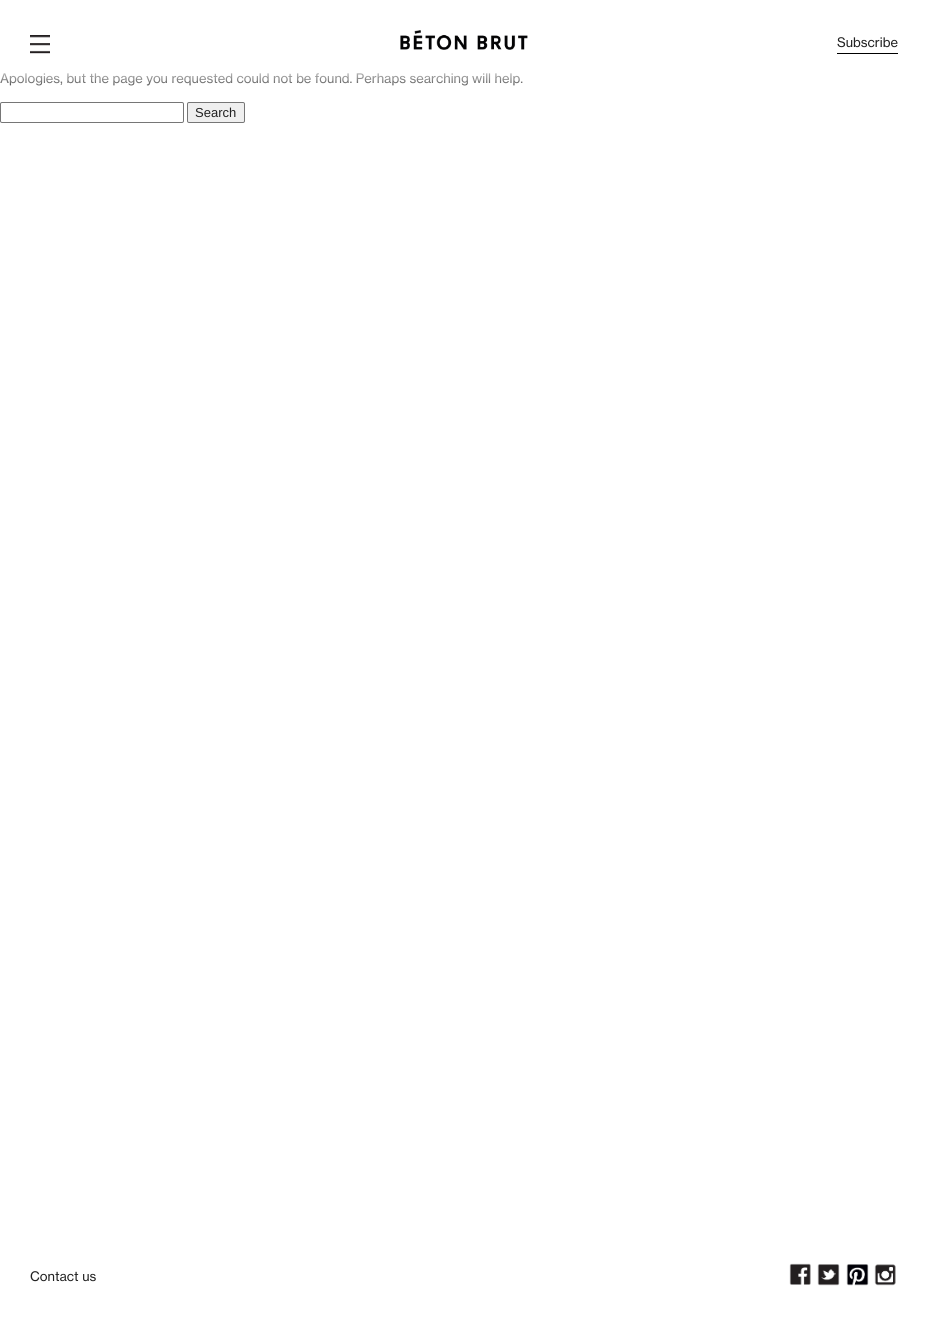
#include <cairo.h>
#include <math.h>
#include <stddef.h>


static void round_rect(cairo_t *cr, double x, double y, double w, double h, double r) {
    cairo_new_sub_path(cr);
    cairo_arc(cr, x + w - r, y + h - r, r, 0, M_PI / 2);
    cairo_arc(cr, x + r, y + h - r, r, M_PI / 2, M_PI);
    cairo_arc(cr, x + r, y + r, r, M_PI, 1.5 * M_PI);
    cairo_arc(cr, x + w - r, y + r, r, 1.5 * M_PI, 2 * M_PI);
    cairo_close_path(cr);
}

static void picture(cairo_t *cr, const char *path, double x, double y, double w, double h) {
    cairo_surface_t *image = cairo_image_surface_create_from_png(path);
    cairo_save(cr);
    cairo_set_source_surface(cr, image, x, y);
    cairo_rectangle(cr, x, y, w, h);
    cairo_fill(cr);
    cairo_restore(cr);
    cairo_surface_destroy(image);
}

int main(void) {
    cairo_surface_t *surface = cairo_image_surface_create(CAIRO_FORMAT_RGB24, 928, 1317);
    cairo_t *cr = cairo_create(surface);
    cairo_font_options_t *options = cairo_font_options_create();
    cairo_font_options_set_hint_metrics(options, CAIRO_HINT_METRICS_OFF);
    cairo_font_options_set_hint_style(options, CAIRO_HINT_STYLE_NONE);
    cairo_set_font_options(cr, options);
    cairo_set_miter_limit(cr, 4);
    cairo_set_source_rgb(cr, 1, 1, 1);
    cairo_paint(cr);
    cairo_select_font_face(cr, "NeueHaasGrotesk", CAIRO_FONT_SLANT_NORMAL, CAIRO_FONT_WEIGHT_NORMAL);
    cairo_set_font_size(cr, 13);
    cairo_set_source_rgb(cr, 0.133, 0.133, 0.133);
    cairo_move_to(cr, 0, 83);
    cairo_show_text(cr, "Apologies, but the page you requested could not be found. Perhaps searching will help.");
    picture(cr, "img1.png", 0, 23, 523, 63);
    picture(cr, "img2.png", 30, 35, 20, 19);
    picture(cr, "img3.png", 400, 30, 128, 20);
    cairo_set_source_rgb(cr, 0, 0, 0);
    cairo_rectangle(cr, 837, 53, 61, 1);
    cairo_fill(cr);
    cairo_set_source_rgb(cr, 0.133, 0.133, 0.133);
    cairo_move_to(cr, 837, 47);
    cairo_show_text(cr, "Subscribe");
    cairo_move_to(cr, 30, 1281);
    cairo_show_text(cr, "Contact us");
    picture(cr, "img4.png", 789, 1263, 22, 22);
    picture(cr, "img5.png", 817, 1264, 23, 22);
    picture(cr, "img6.png", 846, 1264, 23, 22);
    picture(cr, "img7.png", 874, 1264, 22, 22);
    round_rect(cr, 0.5, 102.5, 183, 20, 1.5);
    cairo_set_source_rgb(cr, 0.463, 0.463, 0.463);
    cairo_set_line_width(cr, 1);
    cairo_stroke(cr);
    cairo_set_source_rgb(cr, 0.937, 0.937, 0.937);
    round_rect(cr, 187.5, 102.5, 57, 20, 1.5);
    cairo_fill_preserve(cr);
    cairo_set_source_rgb(cr, 0.463, 0.463, 0.463);
    cairo_stroke(cr);
    cairo_select_font_face(cr, "Liberation Sans", CAIRO_FONT_SLANT_NORMAL, CAIRO_FONT_WEIGHT_NORMAL);
    cairo_set_source_rgb(cr, 0.133, 0.133, 0.133);
    cairo_move_to(cr, 195, 117);
    cairo_show_text(cr, "Search");
    cairo_surface_write_to_png(surface, "page.png");
    cairo_font_options_destroy(options);
    cairo_destroy(cr);
    cairo_surface_destroy(surface);
    return 0;
}
